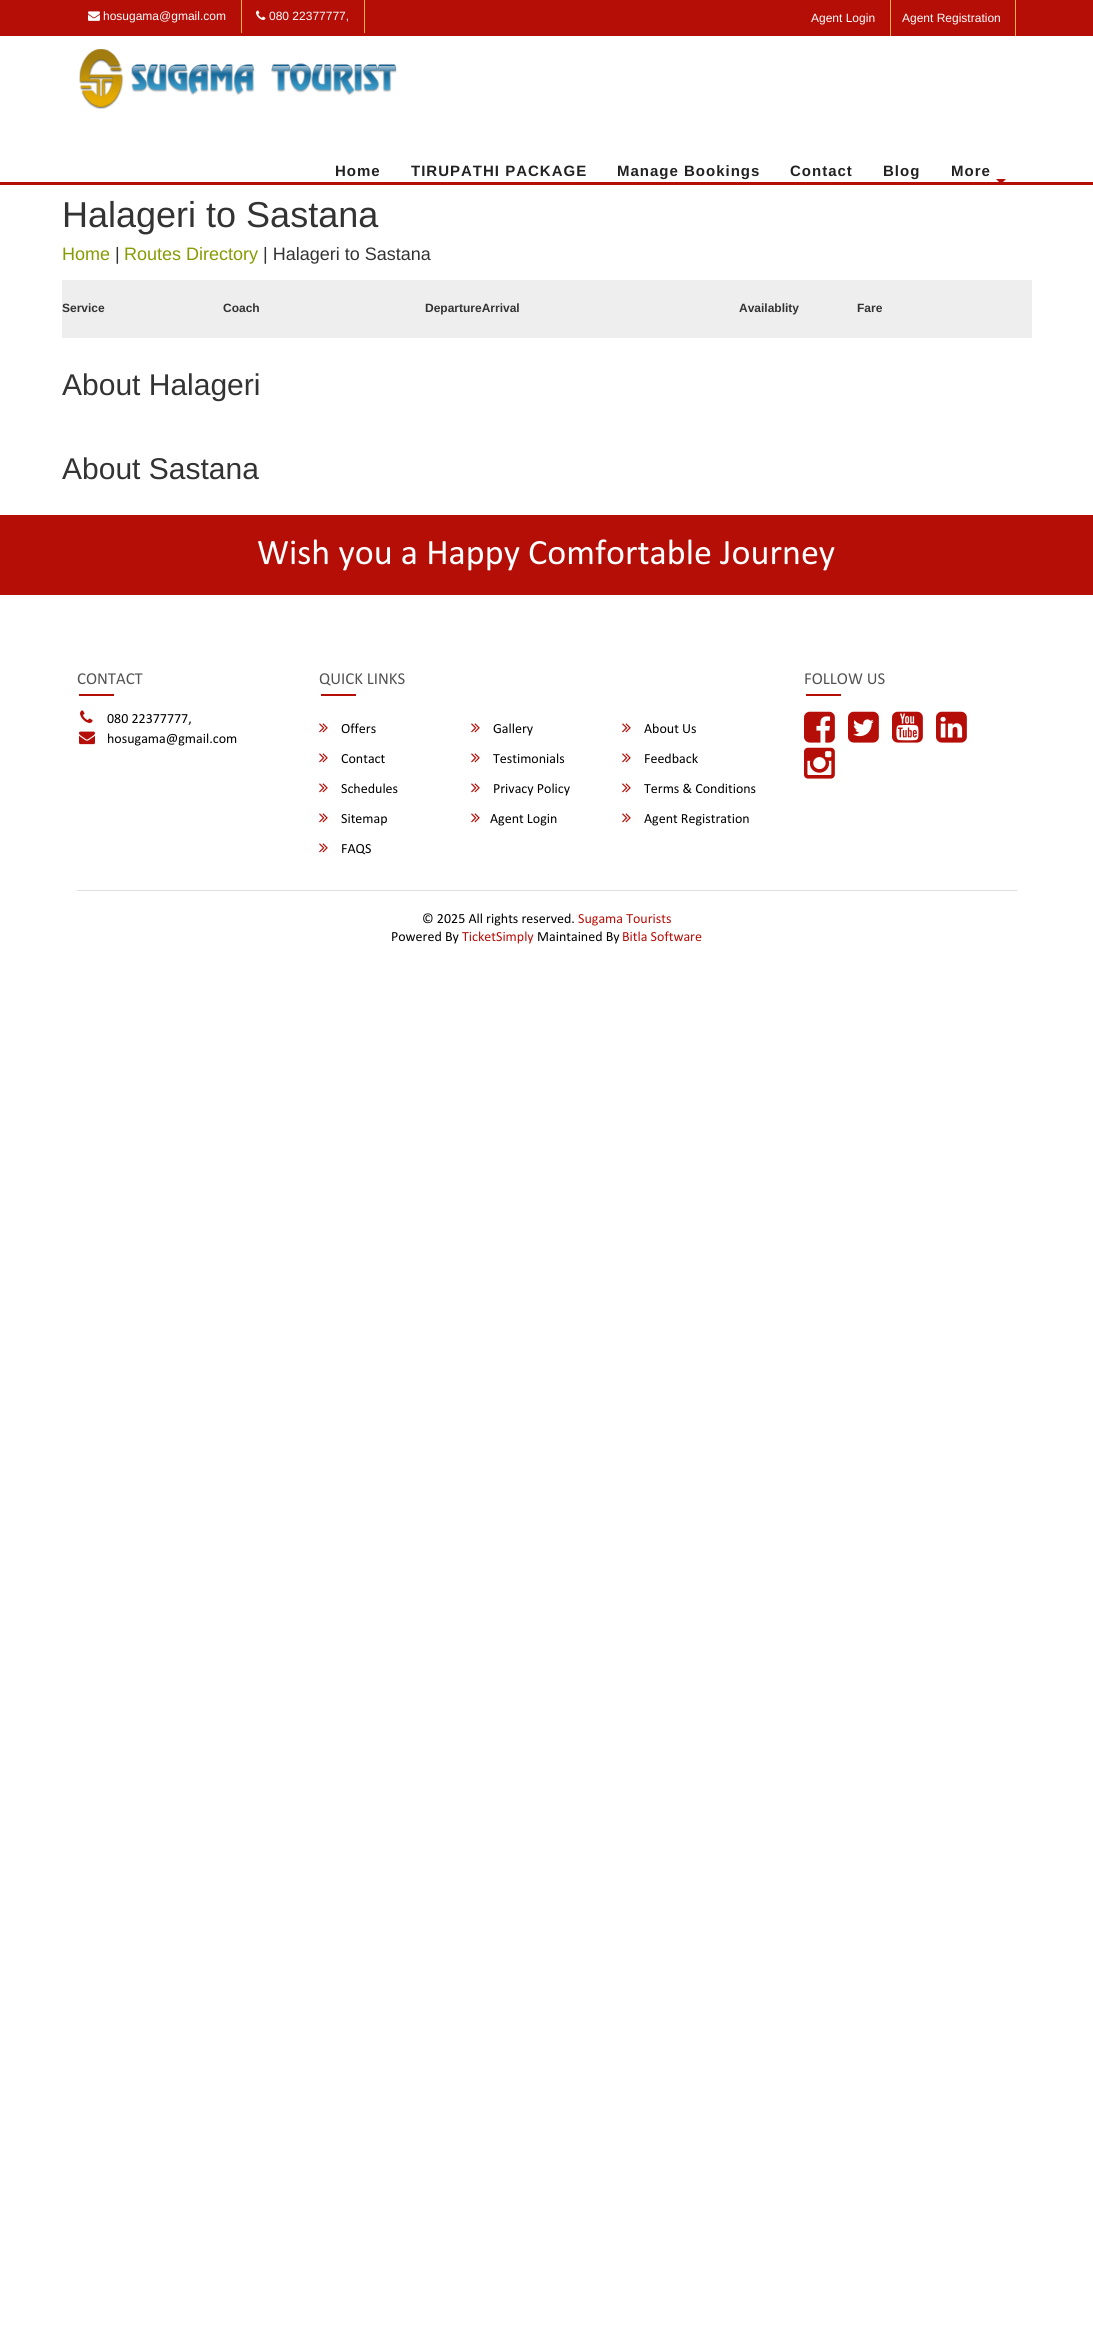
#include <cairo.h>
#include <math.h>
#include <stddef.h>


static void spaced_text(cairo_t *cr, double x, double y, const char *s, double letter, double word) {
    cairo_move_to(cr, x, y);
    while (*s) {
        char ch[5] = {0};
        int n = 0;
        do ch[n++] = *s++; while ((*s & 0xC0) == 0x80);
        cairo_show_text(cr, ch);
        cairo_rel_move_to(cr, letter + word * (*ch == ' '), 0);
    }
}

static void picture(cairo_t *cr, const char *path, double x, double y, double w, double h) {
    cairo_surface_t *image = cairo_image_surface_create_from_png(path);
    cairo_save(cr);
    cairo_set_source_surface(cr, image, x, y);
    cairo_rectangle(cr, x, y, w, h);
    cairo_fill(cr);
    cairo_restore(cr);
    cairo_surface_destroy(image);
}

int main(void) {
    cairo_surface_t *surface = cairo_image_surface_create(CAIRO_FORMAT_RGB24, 1093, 2331);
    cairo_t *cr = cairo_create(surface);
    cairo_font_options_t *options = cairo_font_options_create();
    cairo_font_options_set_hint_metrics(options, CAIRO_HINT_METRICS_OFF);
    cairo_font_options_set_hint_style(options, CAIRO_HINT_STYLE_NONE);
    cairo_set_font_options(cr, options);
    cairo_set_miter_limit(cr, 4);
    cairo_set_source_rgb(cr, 1, 1, 1);
    cairo_paint(cr);
    cairo_set_source_rgb(cr, 0.71, 0.055, 0.031);
    cairo_rectangle(cr, 0, 0, 1093, 36);
    cairo_fill(cr);
    cairo_set_source_rgb(cr, 0.961, 0.69, 0.231);
    cairo_rectangle(cr, 241, 0, 1, 33);
    cairo_fill(cr);
    picture(cr, "img1.png", 88, 11, 12, 10);
    cairo_select_font_face(cr, "Liberation Sans", CAIRO_FONT_SLANT_NORMAL, CAIRO_FONT_WEIGHT_NORMAL);
    cairo_set_font_size(cr, 12);
    cairo_set_source_rgb(cr, 1, 1, 1);
    cairo_move_to(cr, 103, 20);
    cairo_show_text(cr, "hosugama@gmail.com");
    cairo_set_source_rgb(cr, 0.961, 0.69, 0.231);
    cairo_rectangle(cr, 364, 0, 1, 33);
    cairo_fill(cr);
    picture(cr, "img2.png", 256, 10, 10, 10);
    cairo_set_source_rgb(cr, 1, 1, 1);
    cairo_move_to(cr, 269, 20);
    cairo_show_text(cr, "080 22377777,");
    cairo_set_source_rgb(cr, 0.961, 0.69, 0.231);
    cairo_rectangle(cr, 890, 0, 1, 36);
    cairo_fill(cr);
    cairo_set_source_rgb(cr, 1, 1, 1);
    cairo_move_to(cr, 811, 22);
    cairo_show_text(cr, "Agent Login");
    cairo_set_source_rgb(cr, 0.961, 0.69, 0.231);
    cairo_rectangle(cr, 1015, 0, 1, 36);
    cairo_fill(cr);
    cairo_set_source_rgb(cr, 1, 1, 1);
    cairo_move_to(cr, 902, 22);
    cairo_show_text(cr, "Agent Registration");
    cairo_set_source_rgb(cr, 0.71, 0.055, 0.031);
    cairo_rectangle(cr, 0, 182, 1093, 3);
    cairo_fill(cr);
    picture(cr, "img3.png", 79, 49, 318, 60);
    cairo_select_font_face(cr, "Liberation Sans", CAIRO_FONT_SLANT_NORMAL, CAIRO_FONT_WEIGHT_BOLD);
    cairo_set_font_size(cr, 15);
    cairo_set_source_rgb(cr, 0.133, 0.133, 0.133);
    spaced_text(cr, 335, 176, "Home", 1, 0);
    spaced_text(cr, 411, 176, "TIRUPATHI PACKAGE", 1, 0);
    spaced_text(cr, 617, 176, "Manage Bookings", 1, 0);
    spaced_text(cr, 790, 176, "Contact", 1, 0);
    spaced_text(cr, 883, 176, "Blog", 1, 0);
    spaced_text(cr, 951, 176, "More", 1, 0);
    cairo_set_source_rgb(cr, 0.71, 0.055, 0.031);
    cairo_new_path(cr);
    cairo_move_to(cr, 996, 179);
    cairo_line_to(cr, 1006, 179);
    cairo_line_to(cr, 1001, 184);
    cairo_close_path(cr);
    cairo_fill(cr);
    cairo_select_font_face(cr, "Liberation Sans", CAIRO_FONT_SLANT_NORMAL, CAIRO_FONT_WEIGHT_NORMAL);
    cairo_set_font_size(cr, 36);
    cairo_set_source_rgb(cr, 0.2, 0.2, 0.2);
    cairo_move_to(cr, 62, 227);
    cairo_show_text(cr, "Halageri to Sastana");
    cairo_set_font_size(cr, 18);
    cairo_set_source_rgb(cr, 0.529, 0.608, 0.008);
    cairo_move_to(cr, 62, 260);
    cairo_show_text(cr, "Home");
    cairo_set_source_rgb(cr, 0.2, 0.2, 0.2);
    cairo_move_to(cr, 115, 260);
    cairo_show_text(cr, "|");
    cairo_set_source_rgb(cr, 0.529, 0.608, 0.008);
    cairo_move_to(cr, 124, 260);
    cairo_show_text(cr, "Routes Directory");
    cairo_set_source_rgb(cr, 0.2, 0.2, 0.2);
    cairo_move_to(cr, 263, 260);
    cairo_show_text(cr, "| Halageri to Sastana");
    cairo_set_source_rgb(cr, 0.933, 0.933, 0.933);
    cairo_rectangle(cr, 62, 280, 970, 58);
    cairo_fill(cr);
    cairo_select_font_face(cr, "Liberation Sans", CAIRO_FONT_SLANT_NORMAL, CAIRO_FONT_WEIGHT_BOLD);
    cairo_set_font_size(cr, 12);
    cairo_set_source_rgb(cr, 0.2, 0.2, 0.2);
    cairo_move_to(cr, 62, 312);
    cairo_show_text(cr, "Service");
    cairo_move_to(cr, 223, 312);
    cairo_show_text(cr, "Coach");
    cairo_move_to(cr, 425, 312);
    cairo_show_text(cr, "DepartureArrival");
    cairo_move_to(cr, 739, 312);
    cairo_show_text(cr, "Availablity");
    cairo_move_to(cr, 857, 312);
    cairo_show_text(cr, "Fare");
    cairo_select_font_face(cr, "Liberation Sans", CAIRO_FONT_SLANT_NORMAL, CAIRO_FONT_WEIGHT_NORMAL);
    cairo_set_font_size(cr, 30);
    cairo_move_to(cr, 62, 395);
    cairo_show_text(cr, "About Halageri");
    cairo_move_to(cr, 62, 479);
    cairo_show_text(cr, "About Sastana");
    cairo_set_source_rgb(cr, 0.71, 0.055, 0.031);
    cairo_rectangle(cr, 0, 515, 1093, 80);
    cairo_fill(cr);
    cairo_select_font_face(cr, "Calibri", CAIRO_FONT_SLANT_NORMAL, CAIRO_FONT_WEIGHT_NORMAL);
    cairo_set_font_size(cr, 36);
    cairo_set_source_rgb(cr, 1, 1, 1);
    cairo_move_to(cr, 257, 564);
    cairo_show_text(cr, "Wish you a Happy Comfortable Journey");
    cairo_set_font_size(cr, 16.75);
    cairo_set_source_rgb(cr, 0.322, 0.322, 0.322);
    cairo_move_to(cr, 77, 684);
    cairo_show_text(cr, "CONTACT");
    cairo_set_source_rgb(cr, 0.71, 0.055, 0.031);
    cairo_rectangle(cr, 79, 694, 35, 2);
    cairo_fill(cr);
    picture(cr, "img4.png", 80, 710, 13, 13);
    cairo_set_font_size(cr, 14);
    cairo_set_source_rgb(cr, 0, 0, 0);
    cairo_move_to(cr, 107, 723);
    cairo_show_text(cr, "080 22377777,");
    picture(cr, "img5.png", 79, 731, 16, 14);
    cairo_move_to(cr, 107, 743);
    cairo_show_text(cr, "hosugama@gmail.com");
    cairo_set_font_size(cr, 16.75);
    cairo_set_source_rgb(cr, 0.322, 0.322, 0.322);
    cairo_move_to(cr, 319, 684);
    cairo_show_text(cr, "QUICK LINKS");
    cairo_set_source_rgb(cr, 0.71, 0.055, 0.031);
    cairo_rectangle(cr, 321, 694, 35, 2);
    cairo_fill(cr);
    picture(cr, "img6.png", 319, 723, 9, 10);
    cairo_set_font_size(cr, 14);
    cairo_set_source_rgb(cr, 0, 0, 0);
    cairo_move_to(cr, 341, 733);
    cairo_show_text(cr, "Offers");
    picture(cr, "img6.png", 471, 723, 9, 10);
    cairo_move_to(cr, 493, 733);
    cairo_show_text(cr, "Gallery");
    picture(cr, "img6.png", 622, 723, 9, 10);
    cairo_move_to(cr, 644, 733);
    cairo_show_text(cr, "About Us");
    picture(cr, "img6.png", 319, 753, 9, 10);
    cairo_move_to(cr, 341, 763);
    cairo_show_text(cr, "Contact");
    picture(cr, "img6.png", 471, 753, 9, 10);
    cairo_move_to(cr, 493, 763);
    cairo_show_text(cr, "Testimonials");
    picture(cr, "img6.png", 622, 753, 9, 10);
    cairo_move_to(cr, 644, 763);
    cairo_show_text(cr, "Feedback");
    picture(cr, "img6.png", 319, 783, 9, 10);
    cairo_move_to(cr, 341, 793);
    cairo_show_text(cr, "Schedules");
    picture(cr, "img6.png", 471, 783, 9, 10);
    cairo_move_to(cr, 493, 793);
    cairo_show_text(cr, "Privacy Policy");
    picture(cr, "img6.png", 622, 783, 9, 10);
    cairo_move_to(cr, 644, 793);
    cairo_show_text(cr, "Terms & Conditions");
    picture(cr, "img6.png", 319, 813, 9, 10);
    cairo_move_to(cr, 341, 823);
    cairo_show_text(cr, "Sitemap");
    picture(cr, "img6.png", 471, 813, 9, 10);
    cairo_move_to(cr, 490, 823);
    cairo_show_text(cr, "Agent Login");
    picture(cr, "img6.png", 622, 813, 9, 10);
    cairo_move_to(cr, 644, 823);
    cairo_show_text(cr, "Agent Registration");
    picture(cr, "img6.png", 319, 843, 9, 10);
    cairo_move_to(cr, 341, 853);
    cairo_show_text(cr, "FAQS");
    cairo_set_font_size(cr, 16.75);
    cairo_set_source_rgb(cr, 0.322, 0.322, 0.322);
    cairo_move_to(cr, 804, 684);
    cairo_show_text(cr, "FOLLOW US");
    cairo_set_source_rgb(cr, 0.71, 0.055, 0.031);
    cairo_rectangle(cr, 806, 694, 35, 2);
    cairo_fill(cr);
    picture(cr, "img7.png", 804, 711, 31, 32);
    picture(cr, "img8.png", 848, 711, 31, 32);
    picture(cr, "img9.png", 892, 711, 31, 32);
    picture(cr, "img10.png", 936, 711, 31, 32);
    picture(cr, "img11.png", 804, 747, 31, 32);
    cairo_set_source_rgb(cr, 0.867, 0.867, 0.867);
    cairo_rectangle(cr, 77, 890, 940, 1);
    cairo_fill(cr);
    cairo_set_font_size(cr, 14);
    cairo_set_source_rgb(cr, 0, 0, 0);
    cairo_move_to(cr, 422, 923);
    cairo_show_text(cr, "© 2025 All rights reserved.");
    cairo_set_source_rgb(cr, 0.71, 0.055, 0.031);
    cairo_move_to(cr, 578, 923);
    cairo_show_text(cr, "Sugama Tourists");
    cairo_set_source_rgb(cr, 0, 0, 0);
    cairo_move_to(cr, 391, 941);
    cairo_show_text(cr, "Powered By");
    cairo_set_source_rgb(cr, 0.71, 0.055, 0.031);
    cairo_move_to(cr, 462, 941);
    cairo_show_text(cr, "TicketSimply");
    cairo_set_source_rgb(cr, 0, 0, 0);
    cairo_move_to(cr, 537, 941);
    cairo_show_text(cr, "Maintained By");
    cairo_set_source_rgb(cr, 0.71, 0.055, 0.031);
    cairo_move_to(cr, 622, 941);
    cairo_show_text(cr, "Bitla Software");
    cairo_surface_write_to_png(surface, "page.png");
    cairo_font_options_destroy(options);
    cairo_destroy(cr);
    cairo_surface_destroy(surface);
    return 0;
}
